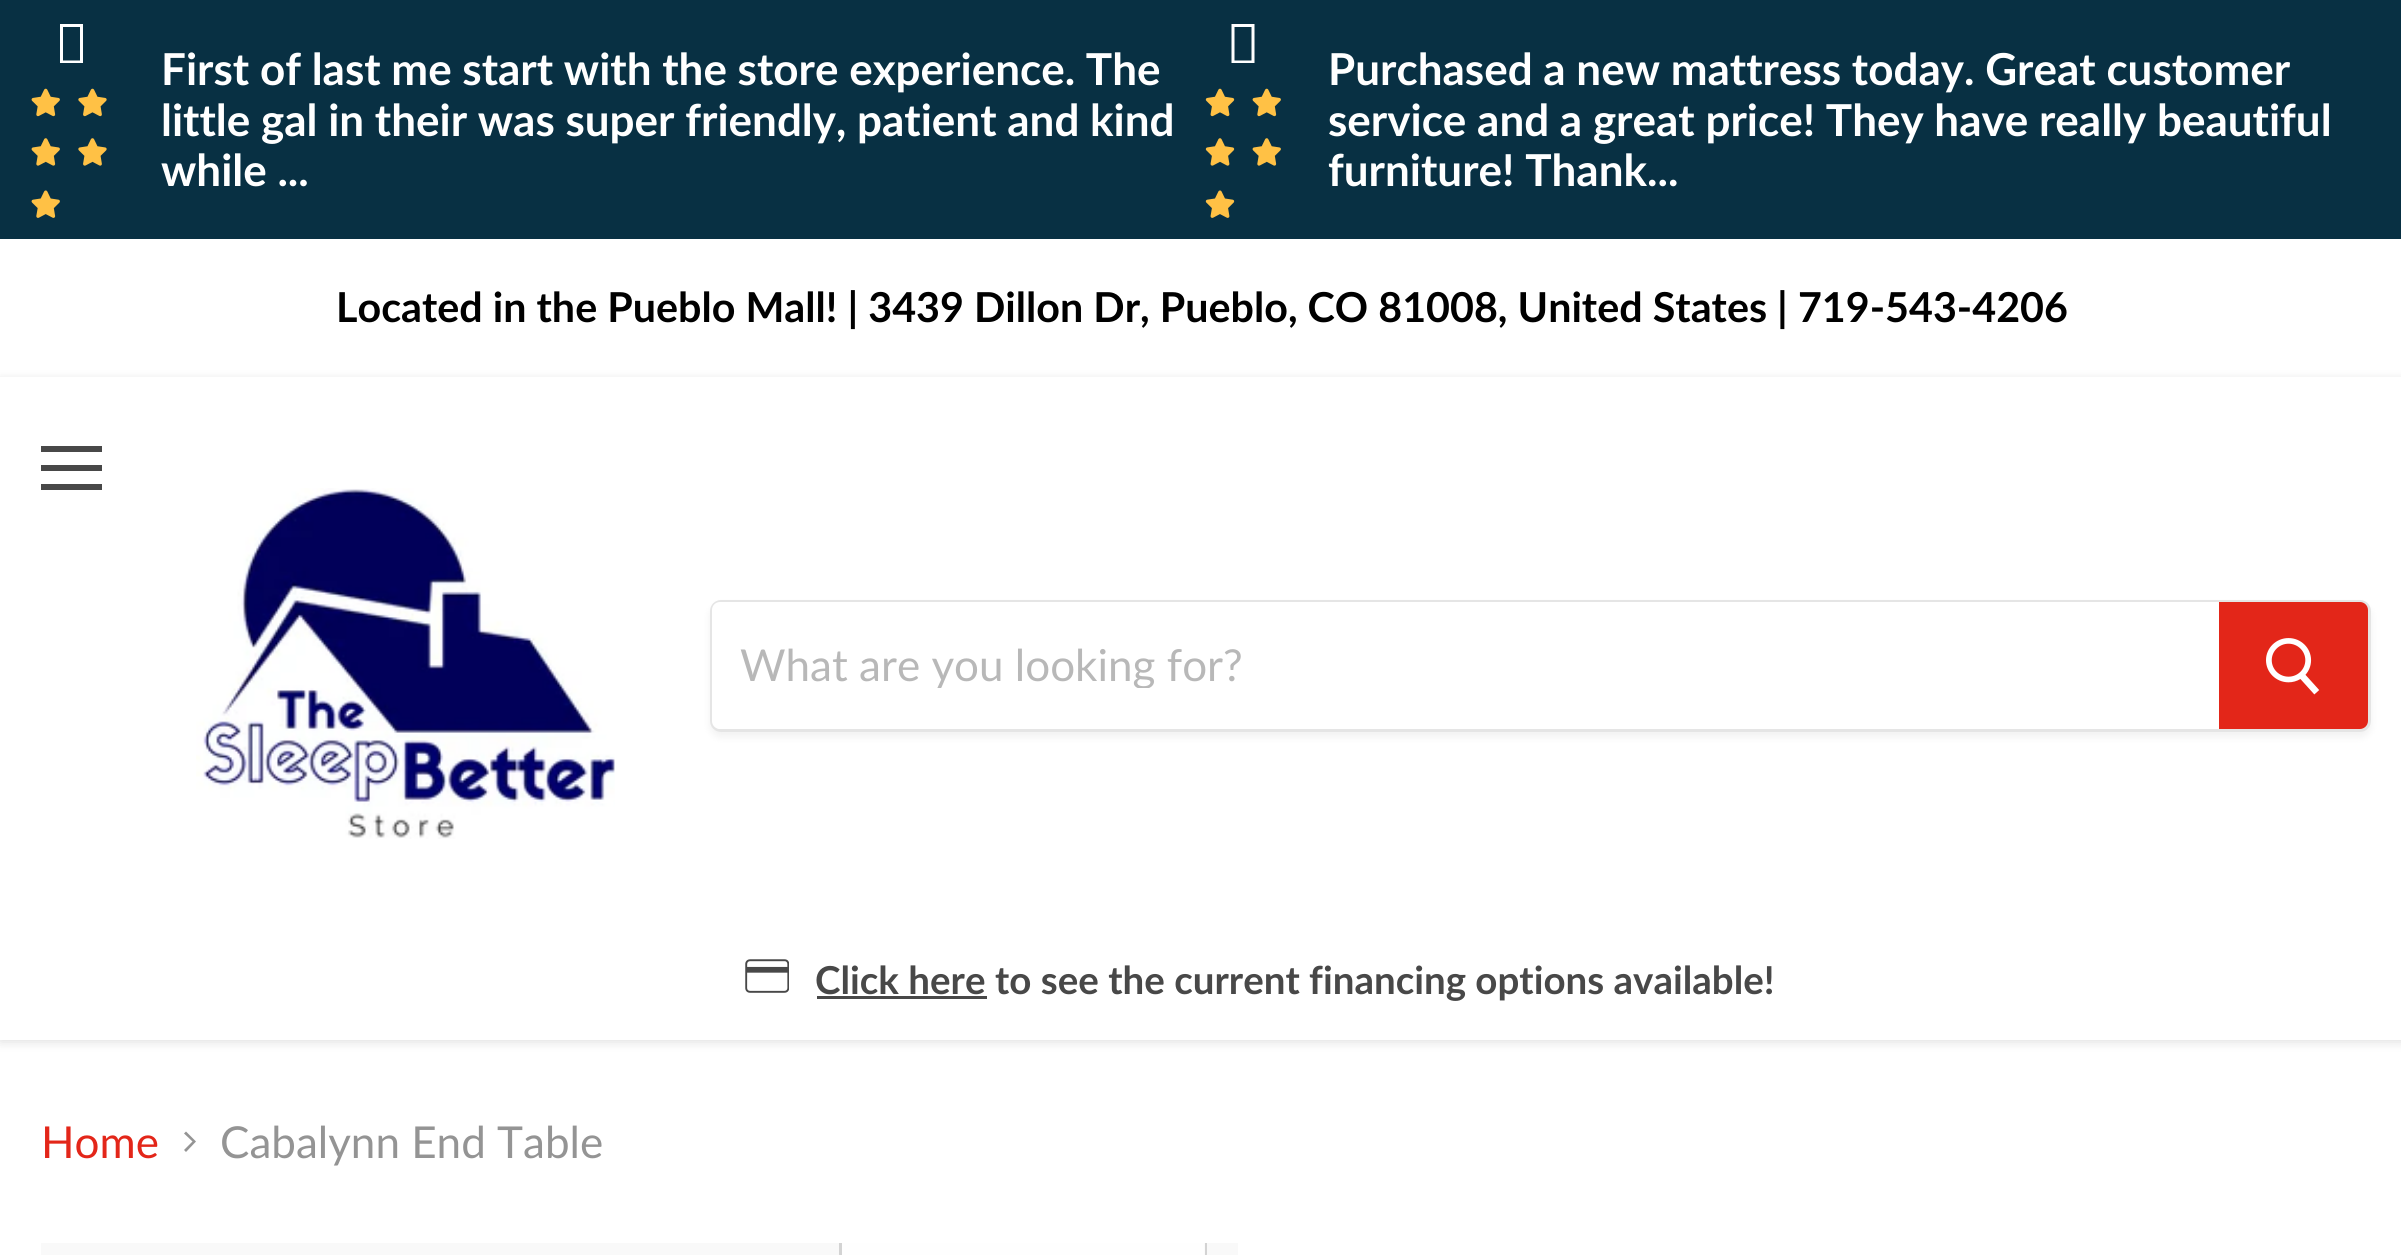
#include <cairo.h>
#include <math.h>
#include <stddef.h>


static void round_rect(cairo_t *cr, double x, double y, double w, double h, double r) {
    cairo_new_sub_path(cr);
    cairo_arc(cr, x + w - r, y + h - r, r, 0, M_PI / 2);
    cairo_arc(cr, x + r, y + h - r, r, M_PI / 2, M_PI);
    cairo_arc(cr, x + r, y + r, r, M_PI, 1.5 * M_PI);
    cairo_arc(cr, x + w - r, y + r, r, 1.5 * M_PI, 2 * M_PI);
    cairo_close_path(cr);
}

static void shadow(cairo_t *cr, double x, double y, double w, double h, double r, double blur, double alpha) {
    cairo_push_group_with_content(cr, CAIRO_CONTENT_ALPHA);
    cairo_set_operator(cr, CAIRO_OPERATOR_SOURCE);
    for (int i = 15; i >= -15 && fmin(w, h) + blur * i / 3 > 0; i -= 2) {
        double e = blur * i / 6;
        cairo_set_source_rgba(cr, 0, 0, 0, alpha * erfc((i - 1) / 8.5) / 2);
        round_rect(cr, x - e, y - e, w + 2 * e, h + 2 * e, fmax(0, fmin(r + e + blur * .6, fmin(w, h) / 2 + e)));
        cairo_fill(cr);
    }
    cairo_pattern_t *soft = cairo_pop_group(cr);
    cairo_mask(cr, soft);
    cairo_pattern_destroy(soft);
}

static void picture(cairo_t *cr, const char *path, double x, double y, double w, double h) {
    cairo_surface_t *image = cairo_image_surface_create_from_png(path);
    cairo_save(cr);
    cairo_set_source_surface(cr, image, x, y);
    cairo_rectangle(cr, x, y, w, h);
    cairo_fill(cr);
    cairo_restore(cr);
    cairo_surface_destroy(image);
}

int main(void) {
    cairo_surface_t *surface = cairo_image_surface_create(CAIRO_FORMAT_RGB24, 2401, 1255);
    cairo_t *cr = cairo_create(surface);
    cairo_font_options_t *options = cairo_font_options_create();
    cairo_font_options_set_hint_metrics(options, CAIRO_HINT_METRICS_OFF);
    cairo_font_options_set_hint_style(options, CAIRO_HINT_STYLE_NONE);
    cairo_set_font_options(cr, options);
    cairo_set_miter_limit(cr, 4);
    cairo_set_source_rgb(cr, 1, 1, 1);
    cairo_paint(cr);
    cairo_set_source_rgb(cr, 0.035, 0.188, 0.263);
    cairo_rectangle(cr, 0, 0, 2401, 239);
    cairo_fill(cr);
    cairo_set_source_rgb(cr, 1, 1, 1);
    cairo_new_path(cr);
    cairo_move_to(cr, 60, 63);
    cairo_line_to(cr, 60, 24);
    cairo_line_to(cr, 83, 24);
    cairo_line_to(cr, 83, 63);
    cairo_close_path(cr);
    cairo_move_to(cr, 63, 60.5);
    cairo_line_to(cr, 80, 60.5);
    cairo_line_to(cr, 80, 27);
    cairo_line_to(cr, 63, 27);
    cairo_close_path(cr);
    cairo_fill(cr);
    picture(cr, "img1.png", 31, 88, 29, 29);
    picture(cr, "img2.png", 78, 88, 29, 29);
    picture(cr, "img3.png", 31, 138, 29, 28);
    picture(cr, "img4.png", 78, 138, 29, 28);
    picture(cr, "img5.png", 31, 190, 29, 28);
    cairo_select_font_face(cr, "Lato", CAIRO_FONT_SLANT_NORMAL, CAIRO_FONT_WEIGHT_BOLD);
    cairo_set_font_size(cr, 44);
    cairo_move_to(cr, 161, 85);
    cairo_show_text(cr, "First of last me start with the store experience. The");
    cairo_move_to(cr, 161, 136);
    cairo_show_text(cr, "little gal in their was super friendly, patient and kind");
    cairo_move_to(cr, 161, 186);
    cairo_show_text(cr, "while ...");
    cairo_new_path(cr);
    cairo_move_to(cr, 1231.5, 63);
    cairo_line_to(cr, 1231.5, 24);
    cairo_line_to(cr, 1254.5, 24);
    cairo_line_to(cr, 1254.5, 63);
    cairo_close_path(cr);
    cairo_move_to(cr, 1234.5, 60.5);
    cairo_line_to(cr, 1251.5, 60.5);
    cairo_line_to(cr, 1251.5, 27);
    cairo_line_to(cr, 1234.5, 27);
    cairo_close_path(cr);
    cairo_fill(cr);
    picture(cr, "img6.png", 1205, 88, 30, 29);
    picture(cr, "img1.png", 1252, 88, 29, 29);
    picture(cr, "img7.png", 1205, 138, 30, 28);
    picture(cr, "img3.png", 1252, 138, 29, 28);
    picture(cr, "img8.png", 1205, 190, 30, 28);
    cairo_move_to(cr, 1328, 85);
    cairo_show_text(cr, "Purchased a new mattress today. Great customer");
    cairo_move_to(cr, 1328, 136);
    cairo_show_text(cr, "service and a great price! They have really beautiful");
    cairo_move_to(cr, 1328, 186);
    cairo_show_text(cr, "furniture! Thank...");
    cairo_set_font_size(cr, 41.25);
    cairo_set_source_rgb(cr, 0, 0, 0);
    cairo_move_to(cr, 336, 322);
    cairo_show_text(cr, "Located in the Pueblo Mall! | 3439 Dillon Dr, Pueblo, CO 81008, United States | 719-543-4206");
    cairo_set_source_rgb(cr, 0.502, 0.502, 0.502);
    shadow(cr, 0, 380, 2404, 662, 0, 5.5, 0.25);
    cairo_set_source_rgb(cr, 1, 1, 1);
    cairo_rectangle(cr, 0, 377, 2401, 663);
    cairo_fill(cr);
    cairo_set_source_rgb(cr, 0.282, 0.282, 0.282);
    cairo_rectangle(cr, 41, 446, 61, 6);
    cairo_fill(cr);
    cairo_rectangle(cr, 41, 465, 61, 6);
    cairo_fill(cr);
    cairo_rectangle(cr, 41, 484, 61, 6);
    cairo_fill(cr);
    picture(cr, "img9.png", 196, 488, 419, 351);
    cairo_save(cr);
    cairo_set_fill_rule(cr, CAIRO_FILL_RULE_EVEN_ODD);
    cairo_new_path(cr);
    cairo_move_to(cr, 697, 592);
    cairo_line_to(cr, 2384, 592);
    cairo_line_to(cr, 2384, 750);
    cairo_line_to(cr, 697, 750);
    cairo_close_path(cr);
    cairo_move_to(cr, 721, 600);
    cairo_line_to(cr, 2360, 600);
    cairo_curve_to(cr, 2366, 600, 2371, 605, 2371, 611);
    cairo_line_to(cr, 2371, 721);
    cairo_curve_to(cr, 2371, 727, 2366, 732, 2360, 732);
    cairo_line_to(cr, 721, 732);
    cairo_curve_to(cr, 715, 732, 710, 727, 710, 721);
    cairo_line_to(cr, 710, 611);
    cairo_curve_to(cr, 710, 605, 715, 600, 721, 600);
    cairo_close_path(cr);
    cairo_clip(cr);
    cairo_set_source_rgb(cr, 0.502, 0.502, 0.502);
    shadow(cr, 710, 605, 1661, 132, 11, 4, 0.11);
    cairo_restore(cr);
    round_rect(cr, 711.5, 601.5, 1658, 129, 9.5);
    cairo_set_source_rgba(cr, 0.502, 0.502, 0.502, 0.2);
    cairo_set_line_width(cr, 3);
    cairo_stroke(cr);
    cairo_set_source_rgb(cr, 1, 1, 1);
    cairo_new_path(cr);
    cairo_move_to(cr, 720, 602);
    cairo_line_to(cr, 2219, 602);
    cairo_line_to(cr, 2219, 729);
    cairo_line_to(cr, 720, 729);
    cairo_curve_to(cr, 715.5, 729, 712, 725.5, 712, 721);
    cairo_line_to(cr, 712, 610);
    cairo_curve_to(cr, 712, 605.5, 715.5, 602, 720, 602);
    cairo_close_path(cr);
    cairo_fill(cr);
    cairo_save(cr);
    cairo_rectangle(cr, 740, 635, 1452, 53);
    cairo_clip(cr);
    cairo_select_font_face(cr, "Lato", CAIRO_FONT_SLANT_NORMAL, CAIRO_FONT_WEIGHT_NORMAL);
    cairo_set_font_size(cr, 44);
    cairo_set_source_rgb(cr, 0.722, 0.722, 0.722);
    cairo_move_to(cr, 740, 681);
    cairo_show_text(cr, "What are you looking for?");
    cairo_restore(cr);
    cairo_set_source_rgb(cr, 0.89, 0.149, 0.098);
    cairo_new_path(cr);
    cairo_move_to(cr, 2220.5, 603.5);
    cairo_line_to(cr, 2360, 603.5);
    cairo_curve_to(cr, 2363.5, 603.5, 2366.5, 606.5, 2366.5, 610);
    cairo_line_to(cr, 2366.5, 721);
    cairo_curve_to(cr, 2366.5, 724.5, 2363.5, 727.5, 2360, 727.5);
    cairo_line_to(cr, 2220.5, 727.5);
    cairo_close_path(cr);
    cairo_fill_preserve(cr);
    cairo_stroke(cr);
    picture(cr, "img10.png", 2266, 638, 54, 57);
    picture(cr, "img11.png", 745, 959, 44, 34);
    cairo_set_font_size(cr, 38.5);
    cairo_set_source_rgb(cr, 0.282, 0.282, 0.282);
    cairo_move_to(cr, 815, 994);
    cairo_show_text(cr, "Click here");
    cairo_rectangle(cr, 817, 996, 170, 3);
    cairo_fill(cr);
    cairo_move_to(cr, 995, 994);
    cairo_show_text(cr, "to see the current financing options available!");
    cairo_select_font_face(cr, "Lato", CAIRO_FONT_SLANT_NORMAL, CAIRO_FONT_WEIGHT_NORMAL);
    cairo_set_font_size(cr, 44);
    cairo_set_source_rgb(cr, 0.89, 0.149, 0.098);
    cairo_move_to(cr, 41, 1158);
    cairo_show_text(cr, "Home");
    cairo_set_source_rgb(cr, 0.58, 0.58, 0.58);
    cairo_set_fill_rule(cr, CAIRO_FILL_RULE_EVEN_ODD);
    cairo_new_path(cr);
    cairo_move_to(cr, 184, 1150);
    cairo_line_to(cr, 186, 1152);
    cairo_line_to(cr, 196, 1141.5);
    cairo_line_to(cr, 186, 1131.5);
    cairo_line_to(cr, 184, 1133.5);
    cairo_line_to(cr, 192.5, 1141.5);
    cairo_close_path(cr);
    cairo_fill(cr);
    cairo_move_to(cr, 220, 1158);
    cairo_show_text(cr, "Cabalynn End Table");
    cairo_set_source_rgb(cr, 0.973, 0.973, 0.973);
    cairo_rectangle(cr, 41, 1243, 1197, 12);
    cairo_fill(cr);
    cairo_save(cr);
    cairo_set_fill_rule(cr, CAIRO_FILL_RULE_WINDING);
    cairo_rectangle(cr, 41, 1243, 1197, 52);
    cairo_clip(cr);
    round_rect(cr, 840.5, 1184.5, 365, 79, 9.5);
    cairo_set_source_rgb(cr, 0.827, 0.827, 0.827);
    cairo_stroke(cr);
    cairo_restore(cr);
    cairo_set_source_rgba(cr, 1, 1, 1, 0.9);
    cairo_rectangle(cr, 842, 1243, 363, 12);
    cairo_fill(cr);
    cairo_surface_write_to_png(surface, "page.png");
    cairo_font_options_destroy(options);
    cairo_destroy(cr);
    cairo_surface_destroy(surface);
    return 0;
}
